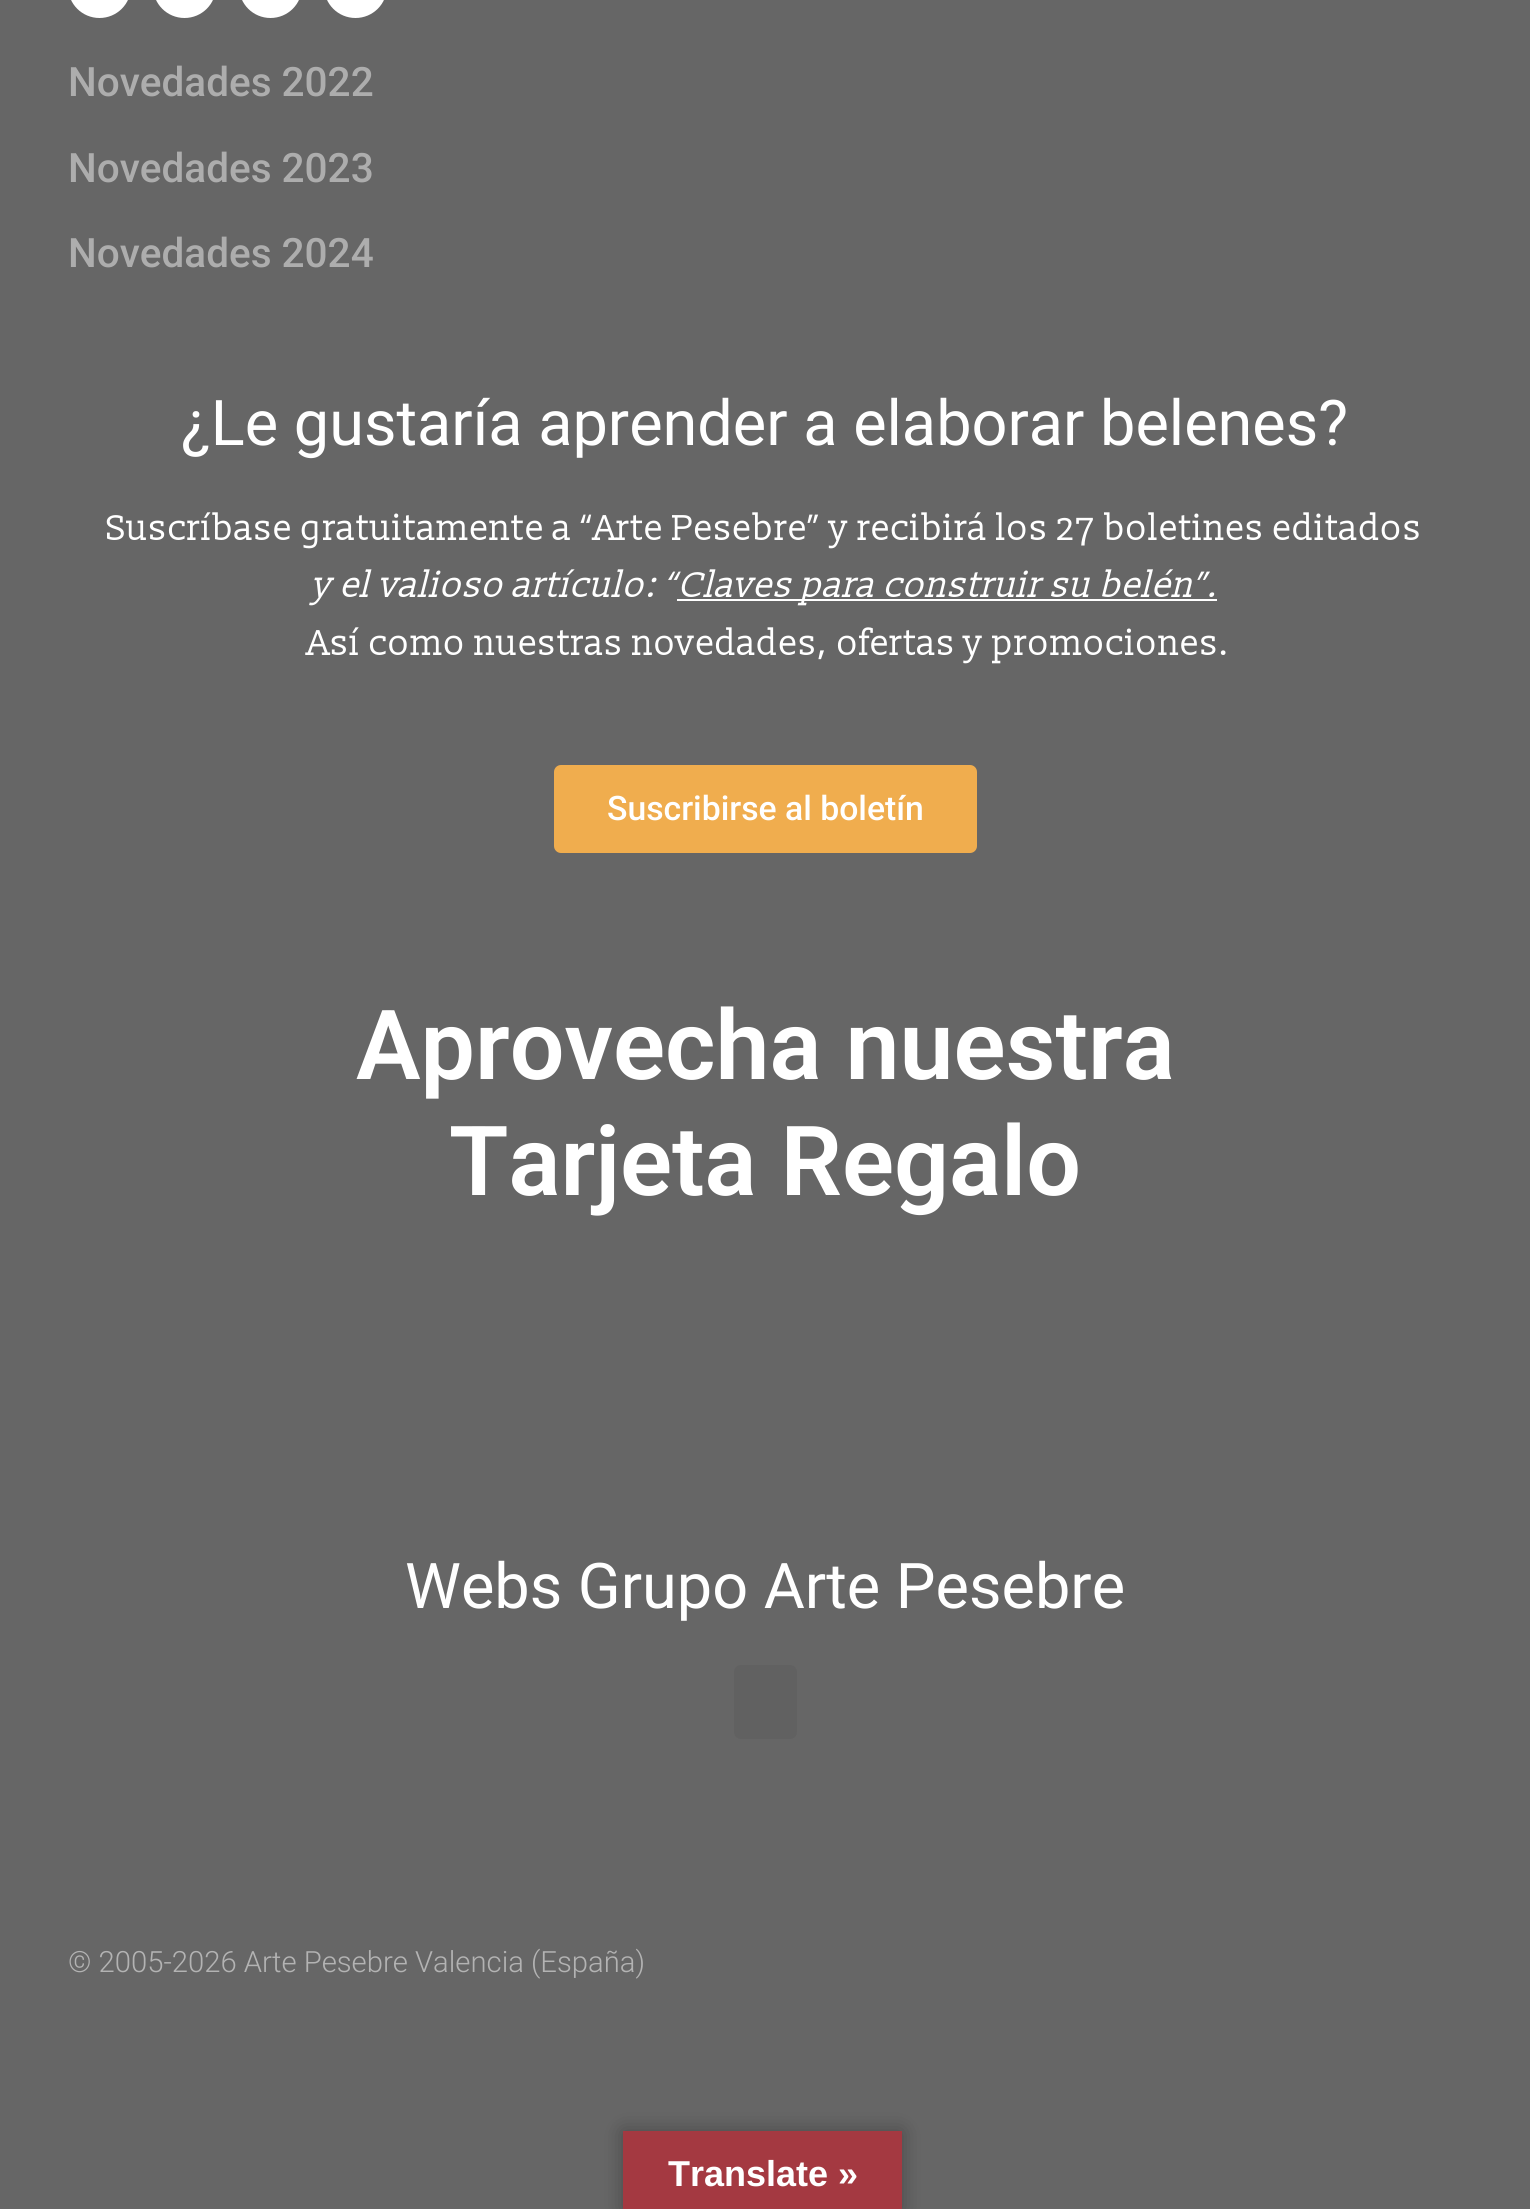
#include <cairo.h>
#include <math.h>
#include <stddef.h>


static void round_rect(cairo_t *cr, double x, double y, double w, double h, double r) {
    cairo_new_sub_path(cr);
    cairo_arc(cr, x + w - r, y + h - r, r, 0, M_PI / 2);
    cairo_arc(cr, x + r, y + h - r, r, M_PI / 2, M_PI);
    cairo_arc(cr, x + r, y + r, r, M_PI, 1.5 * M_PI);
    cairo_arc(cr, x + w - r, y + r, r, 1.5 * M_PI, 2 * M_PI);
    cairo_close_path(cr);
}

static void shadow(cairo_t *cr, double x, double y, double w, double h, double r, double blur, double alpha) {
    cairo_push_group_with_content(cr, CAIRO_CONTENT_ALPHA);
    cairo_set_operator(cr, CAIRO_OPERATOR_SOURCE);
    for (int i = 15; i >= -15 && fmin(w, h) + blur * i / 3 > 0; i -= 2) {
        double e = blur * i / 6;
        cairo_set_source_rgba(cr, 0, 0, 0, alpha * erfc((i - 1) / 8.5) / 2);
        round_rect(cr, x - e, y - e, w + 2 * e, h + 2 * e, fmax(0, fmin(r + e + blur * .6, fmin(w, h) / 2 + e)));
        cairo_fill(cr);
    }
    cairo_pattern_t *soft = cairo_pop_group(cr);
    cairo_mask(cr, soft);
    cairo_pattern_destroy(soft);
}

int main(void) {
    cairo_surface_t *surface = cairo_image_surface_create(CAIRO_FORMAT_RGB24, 1530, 2209);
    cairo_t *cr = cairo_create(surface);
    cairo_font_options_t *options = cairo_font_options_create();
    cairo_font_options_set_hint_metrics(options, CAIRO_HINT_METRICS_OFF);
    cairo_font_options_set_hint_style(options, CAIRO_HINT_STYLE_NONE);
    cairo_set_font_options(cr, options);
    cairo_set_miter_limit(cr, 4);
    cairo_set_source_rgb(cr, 0.4, 0.4, 0.4);
    cairo_paint(cr);
    cairo_set_source_rgb(cr, 1, 1, 1);
    round_rect(cr, 68, -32, 63, 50, 31.5);
    cairo_fill(cr);
    round_rect(cr, 153, -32, 63, 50, 31.5);
    cairo_fill(cr);
    round_rect(cr, 239, -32, 63, 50, 31.5);
    cairo_fill(cr);
    round_rect(cr, 324, -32, 63, 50, 31.5);
    cairo_fill(cr);
    cairo_select_font_face(cr, "Roboto Medium", CAIRO_FONT_SLANT_NORMAL, CAIRO_FONT_WEIGHT_NORMAL);
    cairo_set_font_size(cr, 40.5);
    cairo_set_source_rgb(cr, 0.678, 0.678, 0.678);
    cairo_move_to(cr, 68, 96);
    cairo_show_text(cr, "Novedades 2022");
    cairo_move_to(cr, 68, 182);
    cairo_show_text(cr, "Novedades 2023");
    cairo_move_to(cr, 68, 267);
    cairo_show_text(cr, "Novedades 2024");
    cairo_select_font_face(cr, "Roboto", CAIRO_FONT_SLANT_NORMAL, CAIRO_FONT_WEIGHT_NORMAL);
    cairo_set_font_size(cr, 63);
    cairo_set_source_rgb(cr, 1, 1, 1);
    cairo_move_to(cr, 181, 445);
    cairo_show_text(cr, "¿Le gustaría aprender a elaborar belenes?");
    cairo_select_font_face(cr, "Slabo 13px", CAIRO_FONT_SLANT_NORMAL, CAIRO_FONT_WEIGHT_NORMAL);
    cairo_set_font_size(cr, 36);
    cairo_move_to(cr, 107, 540);
    cairo_show_text(cr, "Suscríbase gratuitamente a “Arte Pesebre” y recibirá los 27 boletines editados");
    cairo_select_font_face(cr, "Slabo 13px", CAIRO_FONT_SLANT_ITALIC, CAIRO_FONT_WEIGHT_NORMAL);
    cairo_move_to(cr, 312, 597);
    cairo_show_text(cr, "y el valioso artículo: “");
    cairo_rectangle(cr, 677, 599, 540, 2);
    cairo_fill(cr);
    cairo_move_to(cr, 678, 597);
    cairo_show_text(cr, "Claves para construir su belén”.");
    cairo_select_font_face(cr, "Slabo 13px", CAIRO_FONT_SLANT_NORMAL, CAIRO_FONT_WEIGHT_NORMAL);
    cairo_move_to(cr, 308, 655);
    cairo_show_text(cr, "Así como nuestras novedades, ofertas y promociones.");
    cairo_set_source_rgb(cr, 0.941, 0.678, 0.306);
    round_rect(cr, 554, 765, 423, 88, 7);
    cairo_fill(cr);
    cairo_select_font_face(cr, "Roboto Medium", CAIRO_FONT_SLANT_NORMAL, CAIRO_FONT_WEIGHT_NORMAL);
    cairo_set_font_size(cr, 33.75);
    cairo_set_source_rgb(cr, 1, 1, 1);
    cairo_move_to(cr, 607, 820);
    cairo_show_text(cr, "Suscribirse al boletín");
    cairo_select_font_face(cr, "Roboto SemiBold", CAIRO_FONT_SLANT_NORMAL, CAIRO_FONT_WEIGHT_NORMAL);
    cairo_set_font_size(cr, 96.75);
    cairo_move_to(cr, 356, 1079);
    cairo_show_text(cr, "Aprovecha nuestra");
    cairo_move_to(cr, 449, 1195);
    cairo_show_text(cr, "Tarjeta Regalo");
    cairo_select_font_face(cr, "Roboto", CAIRO_FONT_SLANT_NORMAL, CAIRO_FONT_WEIGHT_NORMAL);
    cairo_set_font_size(cr, 63);
    cairo_move_to(cr, 405, 1608);
    cairo_show_text(cr, "Webs Grupo Arte Pesebre");
    cairo_set_source_rgb(cr, 0.38, 0.38, 0.38);
    round_rect(cr, 734, 1665, 63, 74, 7);
    cairo_fill(cr);
    cairo_select_font_face(cr, "Roboto Light", CAIRO_FONT_SLANT_NORMAL, CAIRO_FONT_WEIGHT_NORMAL);
    cairo_set_font_size(cr, 29.25);
    cairo_set_source_rgb(cr, 0.702, 0.702, 0.702);
    cairo_move_to(cr, 68, 1972);
    cairo_show_text(cr, "© 2005-2026 Arte Pesebre Valencia (España)");
    cairo_set_source_rgb(cr, 0, 0, 0);
    shadow(cr, 623, 2131, 279, 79, 0, 10, 0.3);
    cairo_set_source_rgb(cr, 0.643, 0.224, 0.255);
    cairo_rectangle(cr, 623, 2131, 279, 78);
    cairo_fill(cr);
    cairo_select_font_face(cr, "Liberation Sans", CAIRO_FONT_SLANT_NORMAL, CAIRO_FONT_WEIGHT_BOLD);
    cairo_set_font_size(cr, 36);
    cairo_set_source_rgb(cr, 1, 1, 1);
    cairo_move_to(cr, 668, 2186);
    cairo_show_text(cr, "Translate »");
    cairo_surface_write_to_png(surface, "page.png");
    cairo_font_options_destroy(options);
    cairo_destroy(cr);
    cairo_surface_destroy(surface);
    return 0;
}
